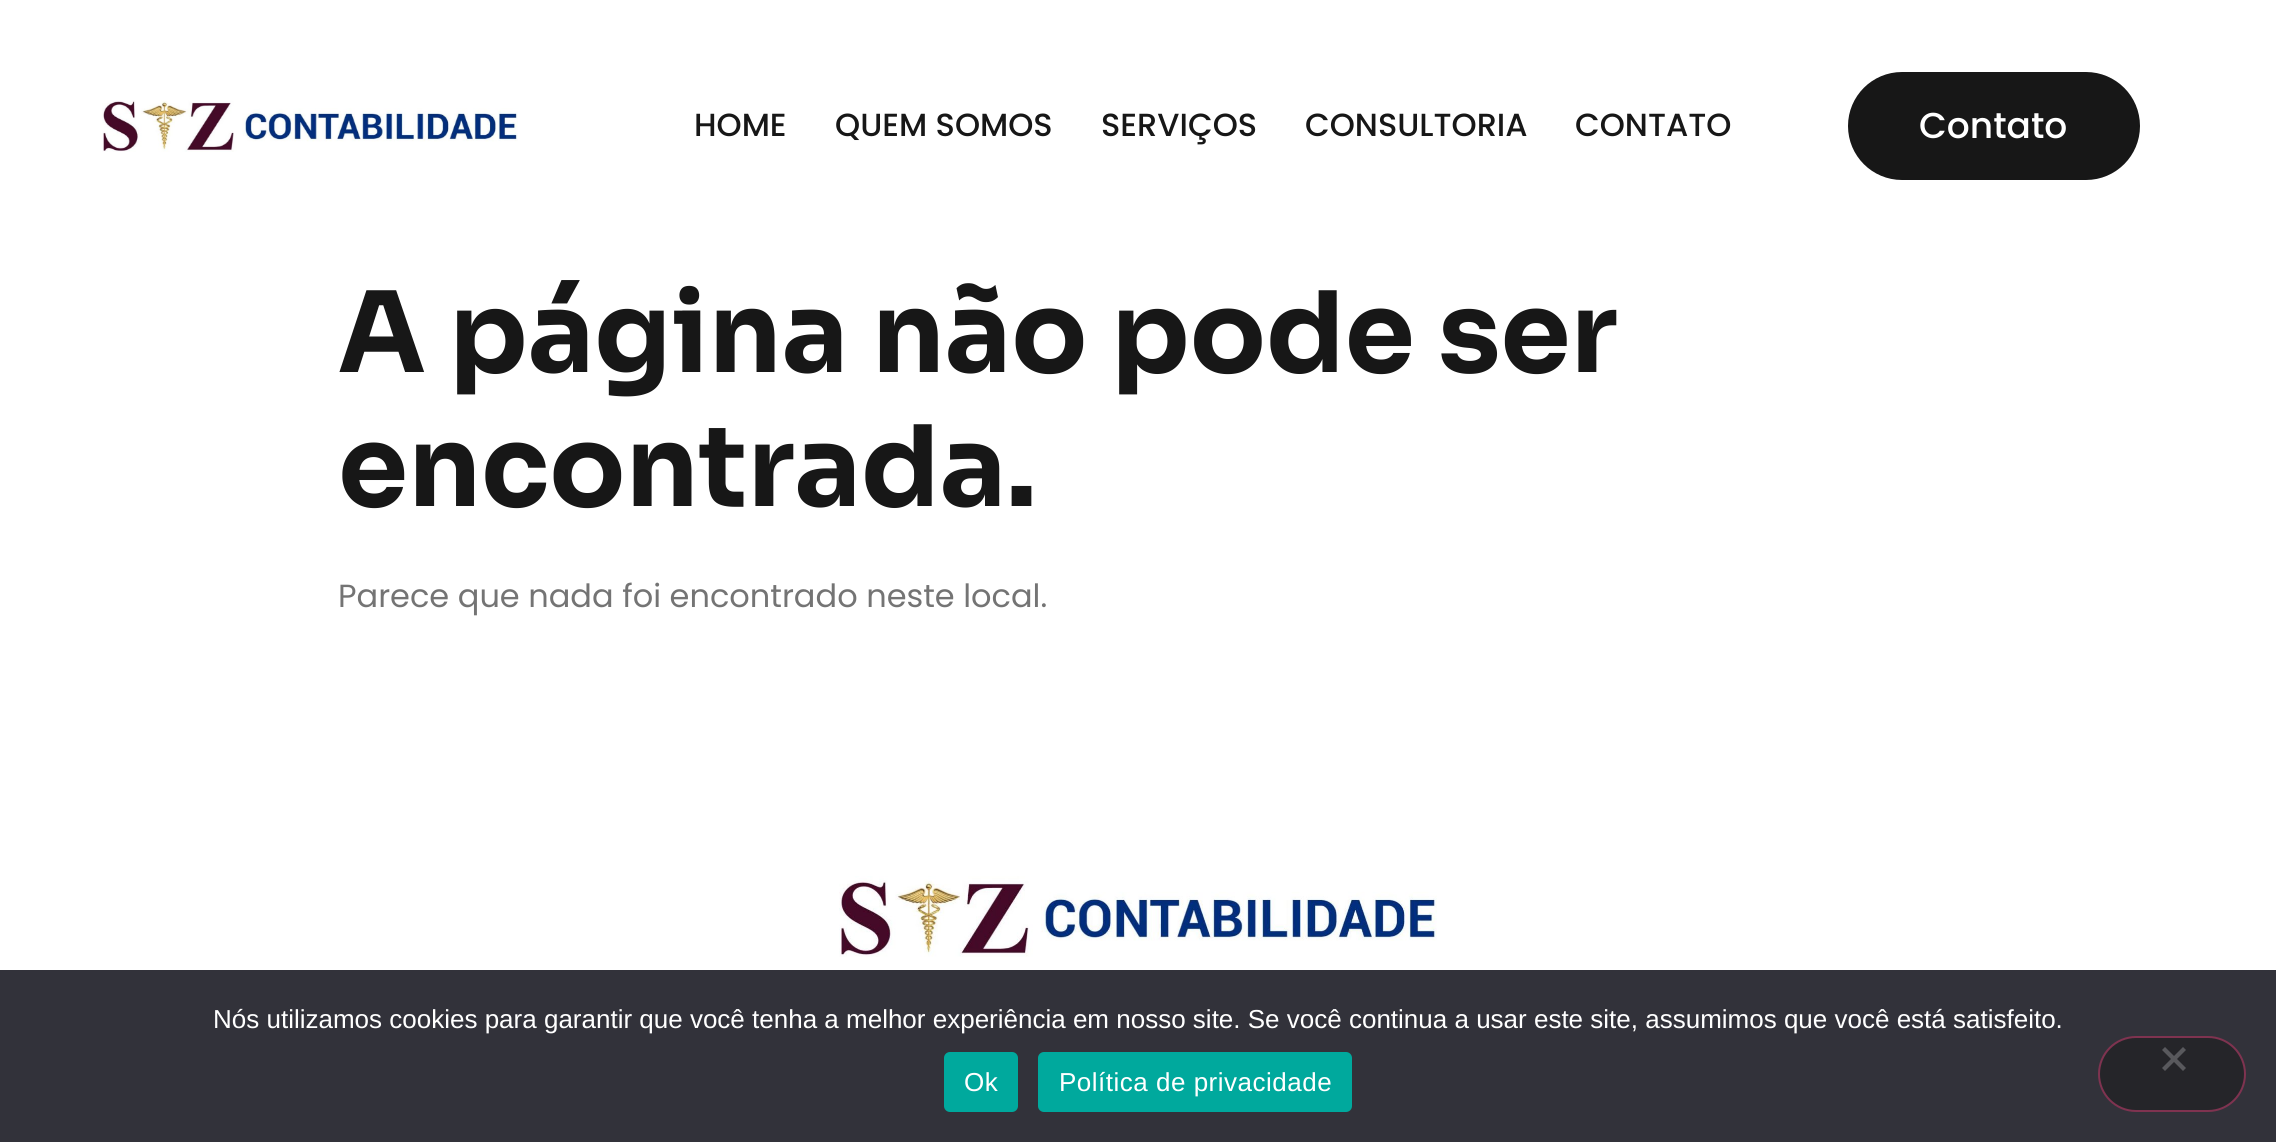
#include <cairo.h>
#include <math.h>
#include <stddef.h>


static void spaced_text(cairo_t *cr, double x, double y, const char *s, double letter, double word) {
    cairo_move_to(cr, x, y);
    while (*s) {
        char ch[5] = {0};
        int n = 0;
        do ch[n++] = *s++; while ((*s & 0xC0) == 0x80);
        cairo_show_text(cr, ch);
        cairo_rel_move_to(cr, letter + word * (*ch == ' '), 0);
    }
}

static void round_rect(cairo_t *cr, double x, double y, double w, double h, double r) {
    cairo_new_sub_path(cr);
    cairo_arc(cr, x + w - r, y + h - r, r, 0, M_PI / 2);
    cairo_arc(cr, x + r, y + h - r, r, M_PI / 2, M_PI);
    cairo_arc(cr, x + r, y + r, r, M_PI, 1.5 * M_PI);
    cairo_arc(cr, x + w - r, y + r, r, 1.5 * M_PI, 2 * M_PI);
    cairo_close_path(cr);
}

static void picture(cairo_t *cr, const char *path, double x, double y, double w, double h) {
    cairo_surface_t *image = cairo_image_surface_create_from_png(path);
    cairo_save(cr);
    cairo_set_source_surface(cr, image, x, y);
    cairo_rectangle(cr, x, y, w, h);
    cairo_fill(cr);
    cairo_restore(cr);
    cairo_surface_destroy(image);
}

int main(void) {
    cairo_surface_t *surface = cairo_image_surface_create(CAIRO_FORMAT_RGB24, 2276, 1142);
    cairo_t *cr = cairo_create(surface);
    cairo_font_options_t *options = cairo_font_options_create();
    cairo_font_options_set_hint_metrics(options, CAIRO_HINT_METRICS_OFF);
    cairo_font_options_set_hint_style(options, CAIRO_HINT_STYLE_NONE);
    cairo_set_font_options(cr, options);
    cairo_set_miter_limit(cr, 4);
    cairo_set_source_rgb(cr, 1, 1, 1);
    cairo_paint(cr);
    picture(cr, "img1.png", 102, 100, 416, 52);
    cairo_select_font_face(cr, "Poppins Medium", CAIRO_FONT_SLANT_NORMAL, CAIRO_FONT_WEIGHT_NORMAL);
    cairo_set_font_size(cr, 32);
    cairo_set_source_rgb(cr, 0.09, 0.09, 0.09);
    cairo_move_to(cr, 694, 136);
    cairo_show_text(cr, "HOME");
    cairo_move_to(cr, 835, 136);
    cairo_show_text(cr, "QUEM SOMOS");
    cairo_move_to(cr, 1101, 136);
    cairo_show_text(cr, "SERVIÇOS");
    cairo_move_to(cr, 1305, 136);
    cairo_show_text(cr, "CONSULTORIA");
    cairo_move_to(cr, 1575, 136);
    cairo_show_text(cr, "CONTATO");
    round_rect(cr, 1848, 72, 292, 108, 54);
    cairo_fill(cr);
    cairo_set_font_size(cr, 36);
    cairo_set_source_rgb(cr, 1, 1, 1);
    cairo_move_to(cr, 1919, 138);
    cairo_show_text(cr, "Contato");
    cairo_select_font_face(cr, "Sora", CAIRO_FONT_SLANT_NORMAL, CAIRO_FONT_WEIGHT_BOLD);
    cairo_set_font_size(cr, 112);
    cairo_set_source_rgb(cr, 0.09, 0.09, 0.09);
    cairo_move_to(cr, 338, 372);
    cairo_show_text(cr, "A página não pode ser");
    cairo_move_to(cr, 338, 506);
    cairo_show_text(cr, "encontrada.");
    cairo_select_font_face(cr, "Poppins", CAIRO_FONT_SLANT_NORMAL, CAIRO_FONT_WEIGHT_NORMAL);
    cairo_set_font_size(cr, 32);
    cairo_set_source_rgb(cr, 0.455, 0.455, 0.455);
    cairo_move_to(cr, 338, 607);
    cairo_show_text(cr, "Parece que nada foi encontrado neste local.");
    picture(cr, "img2.png", 839, 876, 598, 81);
    cairo_set_source_rgb(cr, 0.196, 0.196, 0.227);
    cairo_rectangle(cr, 0, 970, 2276, 172);
    cairo_fill(cr);
    cairo_select_font_face(cr, "Liberation Sans", CAIRO_FONT_SLANT_NORMAL, CAIRO_FONT_WEIGHT_NORMAL);
    cairo_set_font_size(cr, 26);
    cairo_set_source_rgb(cr, 1, 1, 1);
    cairo_move_to(cr, 213, 1028);
    cairo_show_text(cr, "Nós utilizamos cookies para garantir que você tenha a melhor experiência em nosso site. Se você continua a usar este site, assumimos que você está satisfeito.");
    cairo_set_source_rgb(cr, 0, 0.663, 0.616);
    round_rect(cr, 944, 1052, 74, 60, 6);
    cairo_fill(cr);
    cairo_set_source_rgb(cr, 1, 1, 1);
    spaced_text(cr, 964, 1091, "Ok", 0.5, 0);
    cairo_set_source_rgb(cr, 0, 0.663, 0.616);
    round_rect(cr, 1038, 1052, 314, 60, 6);
    cairo_fill(cr);
    cairo_set_source_rgb(cr, 1, 1, 1);
    spaced_text(cr, 1059, 1091, "Política de privacidade", 0.5, 0);
    cairo_set_source_rgb(cr, 0.145, 0.145, 0.161);
    round_rect(cr, 2099, 1037, 146, 74, 37);
    cairo_fill_preserve(cr);
    cairo_set_source_rgb(cr, 0.498, 0.2, 0.314);
    cairo_stroke(cr);
    cairo_set_source_rgb(cr, 0.349, 0.349, 0.365);
    cairo_new_path(cr);
    cairo_move_to(cr, 2183, 1047);
    cairo_line_to(cr, 2186, 1050);
    cairo_line_to(cr, 2165, 1071);
    cairo_line_to(cr, 2162, 1068);
    cairo_close_path(cr);
    cairo_fill(cr);
    cairo_new_path(cr);
    cairo_move_to(cr, 2162, 1050);
    cairo_line_to(cr, 2165, 1047);
    cairo_line_to(cr, 2186, 1068);
    cairo_line_to(cr, 2183, 1071);
    cairo_close_path(cr);
    cairo_fill(cr);
    cairo_surface_write_to_png(surface, "page.png");
    cairo_font_options_destroy(options);
    cairo_destroy(cr);
    cairo_surface_destroy(surface);
    return 0;
}
